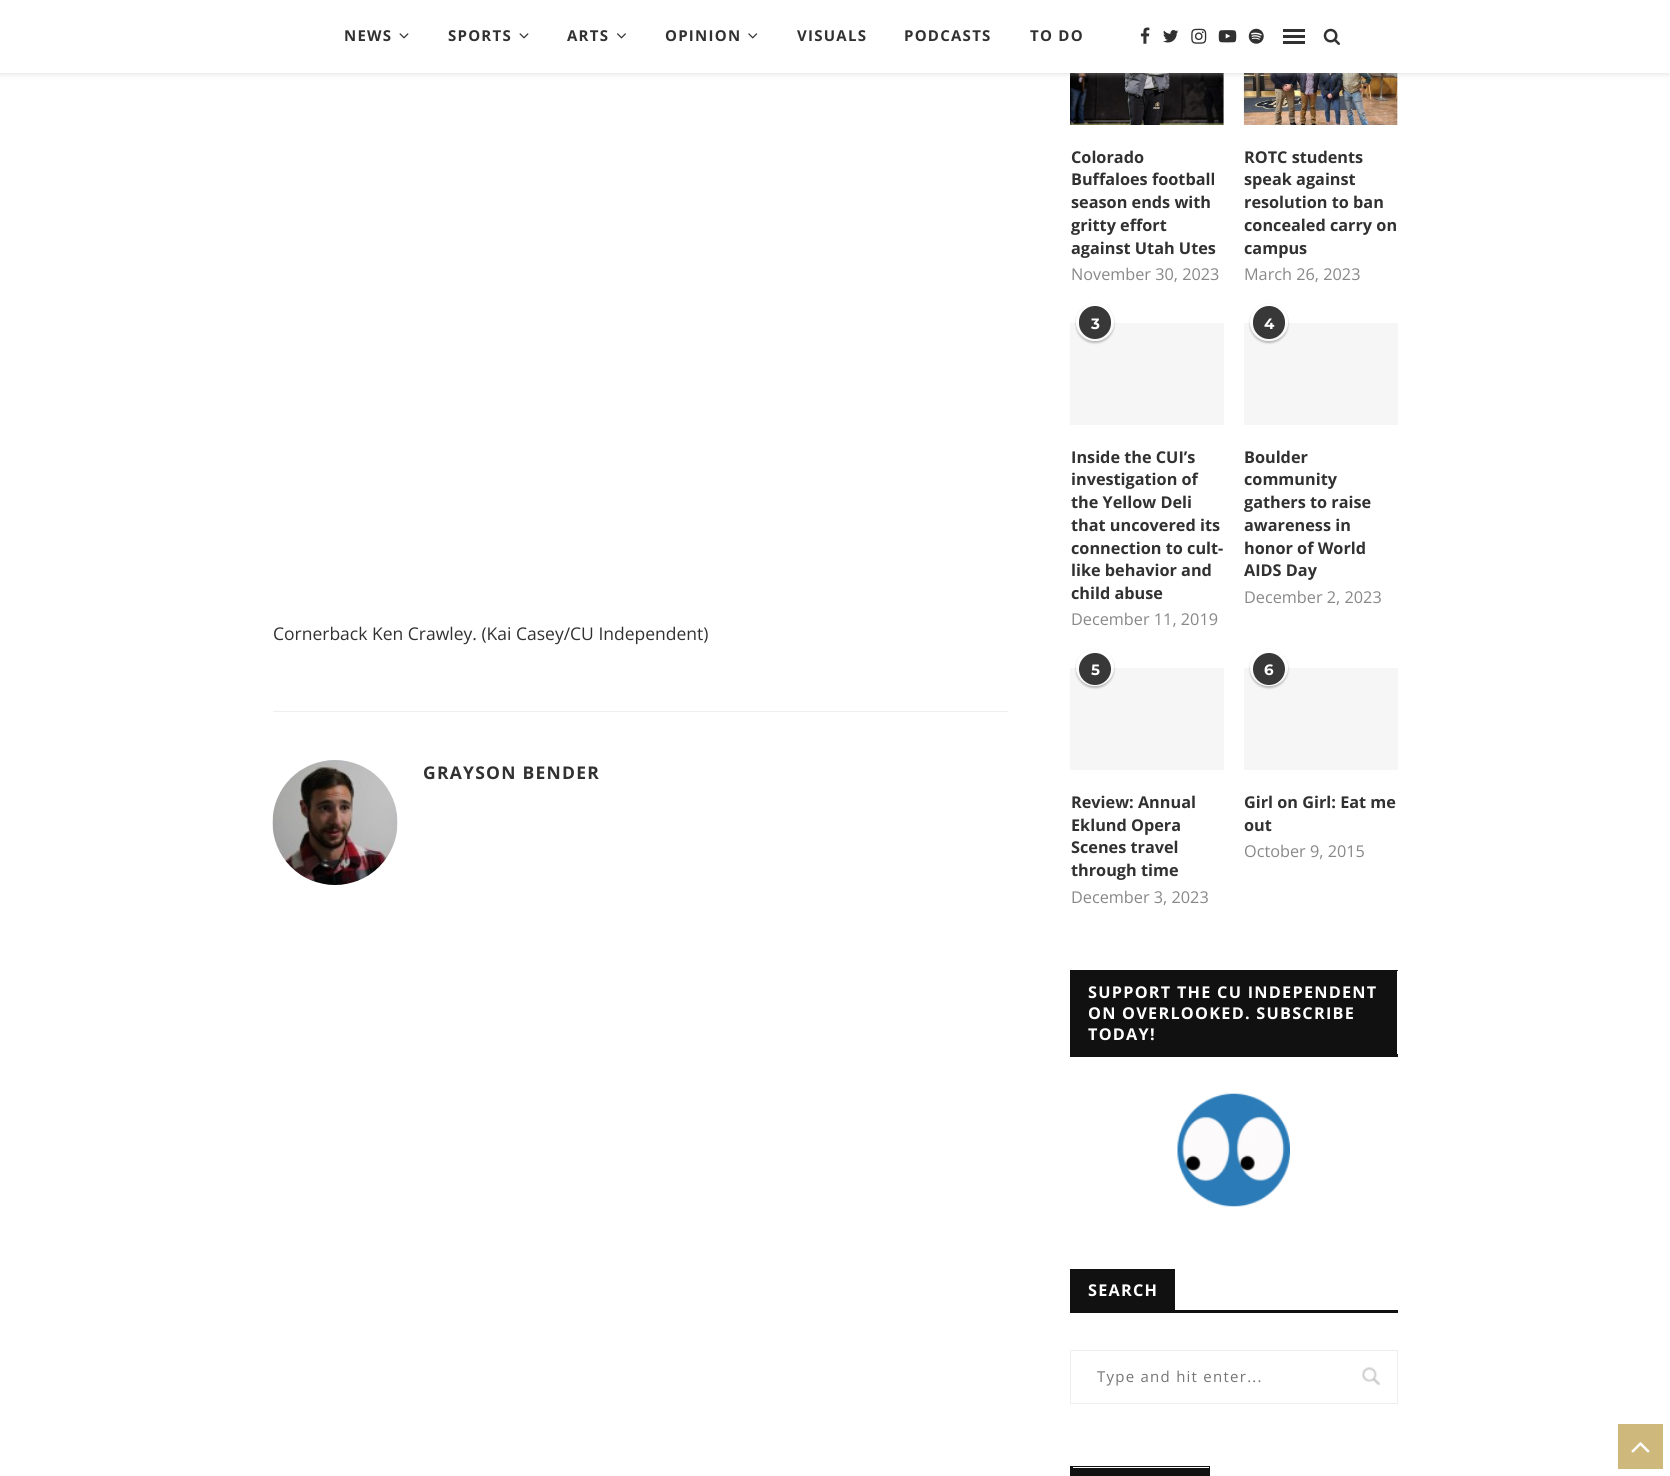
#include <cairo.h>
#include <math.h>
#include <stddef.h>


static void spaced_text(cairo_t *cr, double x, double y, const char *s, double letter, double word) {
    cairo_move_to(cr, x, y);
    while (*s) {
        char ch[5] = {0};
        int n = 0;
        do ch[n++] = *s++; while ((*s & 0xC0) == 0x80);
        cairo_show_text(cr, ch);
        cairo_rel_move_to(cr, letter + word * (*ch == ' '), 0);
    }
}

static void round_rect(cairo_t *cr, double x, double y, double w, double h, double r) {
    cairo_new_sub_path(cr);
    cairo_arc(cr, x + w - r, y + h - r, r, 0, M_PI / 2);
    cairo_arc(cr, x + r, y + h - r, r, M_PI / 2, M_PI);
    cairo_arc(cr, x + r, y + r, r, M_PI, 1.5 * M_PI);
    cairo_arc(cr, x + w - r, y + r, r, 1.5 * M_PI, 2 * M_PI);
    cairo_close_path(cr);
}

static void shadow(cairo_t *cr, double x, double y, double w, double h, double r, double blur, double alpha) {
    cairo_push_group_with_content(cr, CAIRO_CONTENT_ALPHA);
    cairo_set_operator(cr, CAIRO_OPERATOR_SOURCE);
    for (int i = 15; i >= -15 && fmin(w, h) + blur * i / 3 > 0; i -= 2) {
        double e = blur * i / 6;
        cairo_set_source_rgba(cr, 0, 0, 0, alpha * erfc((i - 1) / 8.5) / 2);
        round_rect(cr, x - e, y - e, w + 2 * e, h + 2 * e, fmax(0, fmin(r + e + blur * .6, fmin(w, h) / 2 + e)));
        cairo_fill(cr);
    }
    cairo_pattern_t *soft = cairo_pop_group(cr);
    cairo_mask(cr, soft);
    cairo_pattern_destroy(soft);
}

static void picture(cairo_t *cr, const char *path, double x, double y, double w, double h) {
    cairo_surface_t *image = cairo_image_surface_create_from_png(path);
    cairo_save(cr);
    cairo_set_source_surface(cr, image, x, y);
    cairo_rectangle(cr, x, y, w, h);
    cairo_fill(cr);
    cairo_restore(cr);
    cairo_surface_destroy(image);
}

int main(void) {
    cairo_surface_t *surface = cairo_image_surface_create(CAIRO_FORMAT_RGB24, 1670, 1476);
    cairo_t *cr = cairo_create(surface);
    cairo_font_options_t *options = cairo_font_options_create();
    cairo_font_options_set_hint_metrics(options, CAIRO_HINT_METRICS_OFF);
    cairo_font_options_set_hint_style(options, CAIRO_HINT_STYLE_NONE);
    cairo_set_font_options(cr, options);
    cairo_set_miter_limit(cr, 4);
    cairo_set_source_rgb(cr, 1, 1, 1);
    cairo_paint(cr);
    cairo_set_source_rgb(cr, 0.961, 0.961, 0.961);
    cairo_rectangle(cr, 1223, 73, 1, 52);
    cairo_fill(cr);
    picture(cr, "img11.png", 1070, 73, 154, 52);
    cairo_rectangle(cr, 1397, 73, 1, 52);
    cairo_fill(cr);
    picture(cr, "img12.png", 1243, 73, 155, 52);
    cairo_set_source_rgb(cr, 0.745, 0.745, 0.745);
    shadow(cr, 0, 1, 1670, 73, 0, 3, 0.46);
    cairo_set_source_rgb(cr, 1, 1, 1);
    cairo_rectangle(cr, 0, 0, 1670, 73);
    cairo_fill(cr);
    cairo_select_font_face(cr, "Open Sans", CAIRO_FONT_SLANT_NORMAL, CAIRO_FONT_WEIGHT_BOLD);
    cairo_set_font_size(cr, 15);
    cairo_set_source_rgb(cr, 0.192, 0.192, 0.192);
    spaced_text(cr, 344, 41, "NEWS", 1.25, 0);
    picture(cr, "img1.png", 399, 33, 10, 6);
    spaced_text(cr, 448, 41, "SPORTS", 1.25, 0);
    picture(cr, "img1.png", 519, 33, 10, 6);
    spaced_text(cr, 567, 41, "ARTS", 1.25, 0);
    picture(cr, "img2.png", 617, 33, 9, 6);
    spaced_text(cr, 665, 41, "OPINION", 1.25, 0);
    picture(cr, "img3.png", 748, 33, 10, 6);
    spaced_text(cr, 797, 41, "VISUALS", 1.25, 0);
    spaced_text(cr, 904, 41, "PODCASTS", 1.25, 0);
    spaced_text(cr, 1030, 41, "TO DO", 1.25, 0);
    picture(cr, "img4.png", 1140, 27, 10, 17);
    picture(cr, "img5.png", 1163, 30, 16, 13);
    picture(cr, "img6.png", 1191, 28, 16, 16);
    picture(cr, "img7.png", 1218, 30, 19, 13);
    picture(cr, "img8.png", 1248, 28, 16, 16);
    cairo_rectangle(cr, 1283, 29, 22, 3);
    cairo_fill(cr);
    cairo_rectangle(cr, 1283, 41, 22, 3);
    cairo_fill(cr);
    cairo_rectangle(cr, 1283, 35, 22, 3);
    cairo_fill(cr);
    picture(cr, "img9.png", 1323, 28, 17, 17);
    cairo_select_font_face(cr, "Open Sans", CAIRO_FONT_SLANT_NORMAL, CAIRO_FONT_WEIGHT_NORMAL);
    cairo_set_font_size(cr, 17.5);
    cairo_move_to(cr, 273, 640);
    cairo_show_text(cr, "Cornerback Ken Crawley. (Kai Casey/CU Independent)");
    cairo_set_source_rgb(cr, 0.933, 0.933, 0.933);
    cairo_rectangle(cr, 273, 711, 735, 1);
    cairo_fill(cr);
    picture(cr, "img10.png", 272, 760, 126, 125);
    cairo_select_font_face(cr, "Open Sans", CAIRO_FONT_SLANT_NORMAL, CAIRO_FONT_WEIGHT_BOLD);
    cairo_set_source_rgb(cr, 0.192, 0.192, 0.192);
    spaced_text(cr, 423, 779, "GRAYSON BENDER", 1.25, 0);
    cairo_set_font_size(cr, 16.25);
    cairo_move_to(cr, 1071, 163);
    cairo_show_text(cr, "Colorado");
    cairo_move_to(cr, 1071, 185);
    cairo_show_text(cr, "Buffaloes football");
    cairo_move_to(cr, 1071, 208);
    cairo_show_text(cr, "season ends with");
    cairo_move_to(cr, 1071, 231);
    cairo_show_text(cr, "gritty effort");
    cairo_move_to(cr, 1071, 254);
    cairo_show_text(cr, "against Utah Utes");
    cairo_select_font_face(cr, "Open Sans", CAIRO_FONT_SLANT_NORMAL, CAIRO_FONT_WEIGHT_NORMAL);
    cairo_set_source_rgb(cr, 0.533, 0.533, 0.533);
    cairo_move_to(cr, 1071, 280);
    cairo_show_text(cr, "November 30, 2023");
    cairo_select_font_face(cr, "Open Sans", CAIRO_FONT_SLANT_NORMAL, CAIRO_FONT_WEIGHT_BOLD);
    cairo_set_source_rgb(cr, 0.192, 0.192, 0.192);
    cairo_move_to(cr, 1244, 163);
    cairo_show_text(cr, "ROTC students");
    cairo_move_to(cr, 1244, 185);
    cairo_show_text(cr, "speak against");
    cairo_move_to(cr, 1244, 208);
    cairo_show_text(cr, "resolution to ban");
    cairo_move_to(cr, 1244, 231);
    cairo_show_text(cr, "concealed carry on");
    cairo_move_to(cr, 1244, 254);
    cairo_show_text(cr, "campus");
    cairo_select_font_face(cr, "Open Sans", CAIRO_FONT_SLANT_NORMAL, CAIRO_FONT_WEIGHT_NORMAL);
    cairo_set_source_rgb(cr, 0.533, 0.533, 0.533);
    cairo_move_to(cr, 1244, 280);
    cairo_show_text(cr, "March 26, 2023");
    cairo_set_source_rgb(cr, 0.961, 0.961, 0.961);
    cairo_rectangle(cr, 1070, 323, 154, 102);
    cairo_fill(cr);
    cairo_save(cr);
    cairo_set_fill_rule(cr, CAIRO_FILL_RULE_EVEN_ODD);
    cairo_new_path(cr);
    cairo_move_to(cr, 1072, 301);
    cairo_line_to(cr, 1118, 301);
    cairo_line_to(cr, 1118, 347);
    cairo_line_to(cr, 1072, 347);
    cairo_close_path(cr);
    cairo_move_to(cr, 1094.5, 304);
    cairo_line_to(cr, 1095.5, 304);
    cairo_curve_to(cr, 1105.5, 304, 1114, 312.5, 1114, 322.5);
    cairo_curve_to(cr, 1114, 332.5, 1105.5, 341, 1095.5, 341);
    cairo_line_to(cr, 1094.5, 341);
    cairo_curve_to(cr, 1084.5, 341, 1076, 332.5, 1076, 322.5);
    cairo_curve_to(cr, 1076, 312.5, 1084.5, 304, 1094.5, 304);
    cairo_close_path(cr);
    cairo_clip(cr);
    cairo_set_source_rgb(cr, 0, 0, 0);
    shadow(cr, 1076, 305, 38, 38, 19, 1, 0.25);
    cairo_restore(cr);
    cairo_set_source_rgba(cr, 1, 1, 1, 0.3);
    round_rect(cr, 1076, 304, 38, 37, 18.5);
    cairo_fill(cr);
    cairo_set_source_rgb(cr, 0.22, 0.22, 0.22);
    round_rect(cr, 1079, 306, 32, 33, 16);
    cairo_fill(cr);
    cairo_select_font_face(cr, "Montserrat", CAIRO_FONT_SLANT_NORMAL, CAIRO_FONT_WEIGHT_BOLD);
    cairo_set_font_size(cr, 15);
    cairo_set_source_rgb(cr, 1, 1, 1);
    cairo_move_to(cr, 1091, 329);
    cairo_show_text(cr, "3");
    cairo_select_font_face(cr, "Open Sans", CAIRO_FONT_SLANT_NORMAL, CAIRO_FONT_WEIGHT_BOLD);
    cairo_set_font_size(cr, 16.25);
    cairo_set_source_rgb(cr, 0.192, 0.192, 0.192);
    cairo_move_to(cr, 1071, 463);
    cairo_show_text(cr, "Inside the CUI’s");
    cairo_move_to(cr, 1071, 485);
    cairo_show_text(cr, "investigation of");
    cairo_move_to(cr, 1071, 508);
    cairo_show_text(cr, "the Yellow Deli");
    cairo_move_to(cr, 1071, 531);
    cairo_show_text(cr, "that uncovered its");
    cairo_move_to(cr, 1071, 554);
    cairo_show_text(cr, "connection to cult-");
    cairo_move_to(cr, 1071, 576);
    cairo_show_text(cr, "like behavior and");
    cairo_move_to(cr, 1071, 599);
    cairo_show_text(cr, "child abuse");
    cairo_select_font_face(cr, "Open Sans", CAIRO_FONT_SLANT_NORMAL, CAIRO_FONT_WEIGHT_NORMAL);
    cairo_set_source_rgb(cr, 0.533, 0.533, 0.533);
    cairo_move_to(cr, 1071, 625);
    cairo_show_text(cr, "December 11, 2019");
    cairo_set_source_rgb(cr, 0.961, 0.961, 0.961);
    cairo_rectangle(cr, 1244, 323, 154, 102);
    cairo_fill(cr);
    cairo_save(cr);
    cairo_set_fill_rule(cr, CAIRO_FILL_RULE_EVEN_ODD);
    cairo_new_path(cr);
    cairo_move_to(cr, 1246, 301);
    cairo_line_to(cr, 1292, 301);
    cairo_line_to(cr, 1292, 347);
    cairo_line_to(cr, 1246, 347);
    cairo_close_path(cr);
    cairo_move_to(cr, 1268.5, 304);
    cairo_line_to(cr, 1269.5, 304);
    cairo_curve_to(cr, 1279.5, 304, 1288, 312.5, 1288, 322.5);
    cairo_curve_to(cr, 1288, 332.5, 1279.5, 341, 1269.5, 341);
    cairo_line_to(cr, 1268.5, 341);
    cairo_curve_to(cr, 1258.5, 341, 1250, 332.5, 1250, 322.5);
    cairo_curve_to(cr, 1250, 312.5, 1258.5, 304, 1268.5, 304);
    cairo_close_path(cr);
    cairo_clip(cr);
    cairo_set_source_rgb(cr, 0, 0, 0);
    shadow(cr, 1250, 305, 38, 38, 19, 1, 0.25);
    cairo_restore(cr);
    cairo_set_source_rgba(cr, 1, 1, 1, 0.3);
    round_rect(cr, 1250, 304, 38, 37, 18.5);
    cairo_fill(cr);
    cairo_set_source_rgb(cr, 0.22, 0.22, 0.22);
    round_rect(cr, 1253, 306, 32, 33, 16);
    cairo_fill(cr);
    cairo_select_font_face(cr, "Montserrat", CAIRO_FONT_SLANT_NORMAL, CAIRO_FONT_WEIGHT_BOLD);
    cairo_set_font_size(cr, 15);
    cairo_set_source_rgb(cr, 1, 1, 1);
    cairo_move_to(cr, 1264, 329);
    cairo_show_text(cr, "4");
    cairo_select_font_face(cr, "Open Sans", CAIRO_FONT_SLANT_NORMAL, CAIRO_FONT_WEIGHT_BOLD);
    cairo_set_font_size(cr, 16.25);
    cairo_set_source_rgb(cr, 0.192, 0.192, 0.192);
    cairo_move_to(cr, 1244, 463);
    cairo_show_text(cr, "Boulder");
    cairo_move_to(cr, 1244, 485);
    cairo_show_text(cr, "community");
    cairo_move_to(cr, 1244, 508);
    cairo_show_text(cr, "gathers to raise");
    cairo_move_to(cr, 1244, 531);
    cairo_show_text(cr, "awareness in");
    cairo_move_to(cr, 1244, 554);
    cairo_show_text(cr, "honor of World");
    cairo_move_to(cr, 1244, 576);
    cairo_show_text(cr, "AIDS Day");
    cairo_select_font_face(cr, "Open Sans", CAIRO_FONT_SLANT_NORMAL, CAIRO_FONT_WEIGHT_NORMAL);
    cairo_set_source_rgb(cr, 0.533, 0.533, 0.533);
    cairo_move_to(cr, 1244, 603);
    cairo_show_text(cr, "December 2, 2023");
    cairo_set_source_rgb(cr, 0.961, 0.961, 0.961);
    cairo_rectangle(cr, 1070, 668, 154, 102);
    cairo_fill(cr);
    cairo_save(cr);
    cairo_set_fill_rule(cr, CAIRO_FILL_RULE_EVEN_ODD);
    cairo_new_path(cr);
    cairo_move_to(cr, 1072, 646);
    cairo_line_to(cr, 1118, 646);
    cairo_line_to(cr, 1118, 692);
    cairo_line_to(cr, 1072, 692);
    cairo_close_path(cr);
    cairo_move_to(cr, 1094.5, 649);
    cairo_line_to(cr, 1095.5, 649);
    cairo_curve_to(cr, 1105.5, 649, 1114, 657.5, 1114, 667.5);
    cairo_curve_to(cr, 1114, 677.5, 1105.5, 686, 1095.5, 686);
    cairo_line_to(cr, 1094.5, 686);
    cairo_curve_to(cr, 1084.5, 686, 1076, 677.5, 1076, 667.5);
    cairo_curve_to(cr, 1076, 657.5, 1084.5, 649, 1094.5, 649);
    cairo_close_path(cr);
    cairo_clip(cr);
    cairo_set_source_rgb(cr, 0, 0, 0);
    shadow(cr, 1076, 650, 38, 38, 19, 1, 0.25);
    cairo_restore(cr);
    cairo_set_source_rgba(cr, 1, 1, 1, 0.3);
    round_rect(cr, 1076, 649, 38, 37, 18.5);
    cairo_fill(cr);
    cairo_set_source_rgb(cr, 0.22, 0.22, 0.22);
    cairo_arc(cr, 1095, 669, 16, 0, 2 * M_PI);
    cairo_fill(cr);
    cairo_select_font_face(cr, "Montserrat", CAIRO_FONT_SLANT_NORMAL, CAIRO_FONT_WEIGHT_BOLD);
    cairo_set_font_size(cr, 15);
    cairo_set_source_rgb(cr, 1, 1, 1);
    cairo_move_to(cr, 1091, 675);
    cairo_show_text(cr, "5");
    cairo_select_font_face(cr, "Open Sans", CAIRO_FONT_SLANT_NORMAL, CAIRO_FONT_WEIGHT_BOLD);
    cairo_set_font_size(cr, 16.25);
    cairo_set_source_rgb(cr, 0.192, 0.192, 0.192);
    cairo_move_to(cr, 1071, 808);
    cairo_show_text(cr, "Review: Annual");
    cairo_move_to(cr, 1071, 831);
    cairo_show_text(cr, "Eklund Opera");
    cairo_move_to(cr, 1071, 853);
    cairo_show_text(cr, "Scenes travel");
    cairo_move_to(cr, 1071, 876);
    cairo_show_text(cr, "through time");
    cairo_select_font_face(cr, "Open Sans", CAIRO_FONT_SLANT_NORMAL, CAIRO_FONT_WEIGHT_NORMAL);
    cairo_set_source_rgb(cr, 0.533, 0.533, 0.533);
    cairo_move_to(cr, 1071, 903);
    cairo_show_text(cr, "December 3, 2023");
    cairo_set_source_rgb(cr, 0.961, 0.961, 0.961);
    cairo_rectangle(cr, 1244, 668, 154, 102);
    cairo_fill(cr);
    cairo_save(cr);
    cairo_set_fill_rule(cr, CAIRO_FILL_RULE_EVEN_ODD);
    cairo_new_path(cr);
    cairo_move_to(cr, 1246, 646);
    cairo_line_to(cr, 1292, 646);
    cairo_line_to(cr, 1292, 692);
    cairo_line_to(cr, 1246, 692);
    cairo_close_path(cr);
    cairo_move_to(cr, 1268.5, 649);
    cairo_line_to(cr, 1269.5, 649);
    cairo_curve_to(cr, 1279.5, 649, 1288, 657.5, 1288, 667.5);
    cairo_curve_to(cr, 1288, 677.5, 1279.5, 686, 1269.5, 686);
    cairo_line_to(cr, 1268.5, 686);
    cairo_curve_to(cr, 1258.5, 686, 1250, 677.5, 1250, 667.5);
    cairo_curve_to(cr, 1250, 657.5, 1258.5, 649, 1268.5, 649);
    cairo_close_path(cr);
    cairo_clip(cr);
    cairo_set_source_rgb(cr, 0, 0, 0);
    shadow(cr, 1250, 650, 38, 38, 19, 1, 0.25);
    cairo_restore(cr);
    cairo_set_source_rgba(cr, 1, 1, 1, 0.3);
    round_rect(cr, 1250, 649, 38, 37, 18.5);
    cairo_fill(cr);
    cairo_set_source_rgb(cr, 0.22, 0.22, 0.22);
    cairo_arc(cr, 1269, 669, 16, 0, 2 * M_PI);
    cairo_fill(cr);
    cairo_select_font_face(cr, "Montserrat", CAIRO_FONT_SLANT_NORMAL, CAIRO_FONT_WEIGHT_BOLD);
    cairo_set_font_size(cr, 15);
    cairo_set_source_rgb(cr, 1, 1, 1);
    cairo_move_to(cr, 1264, 675);
    cairo_show_text(cr, "6");
    cairo_select_font_face(cr, "Open Sans", CAIRO_FONT_SLANT_NORMAL, CAIRO_FONT_WEIGHT_BOLD);
    cairo_set_font_size(cr, 16.25);
    cairo_set_source_rgb(cr, 0.192, 0.192, 0.192);
    cairo_move_to(cr, 1244, 808);
    cairo_show_text(cr, "Girl on Girl: Eat me");
    cairo_move_to(cr, 1244, 831);
    cairo_show_text(cr, "out");
    cairo_select_font_face(cr, "Open Sans", CAIRO_FONT_SLANT_NORMAL, CAIRO_FONT_WEIGHT_NORMAL);
    cairo_set_source_rgb(cr, 0.533, 0.533, 0.533);
    cairo_move_to(cr, 1244, 857);
    cairo_show_text(cr, "October 9, 2015");
    cairo_set_source_rgb(cr, 0.067, 0.067, 0.067);
    cairo_rectangle(cr, 1070, 1054, 328, 3);
    cairo_fill(cr);
    cairo_rectangle(cr, 1073, 971, 323, 83);
    cairo_fill(cr);
    cairo_rectangle(cr, 1070, 970, 328, 1);
    cairo_fill(cr);
    cairo_rectangle(cr, 1396, 970, 1, 86);
    cairo_fill(cr);
    cairo_rectangle(cr, 1070, 970, 3, 86);
    cairo_fill(cr);
    cairo_select_font_face(cr, "Open Sans", CAIRO_FONT_SLANT_NORMAL, CAIRO_FONT_WEIGHT_BOLD);
    cairo_set_source_rgb(cr, 1, 1, 1);
    spaced_text(cr, 1088, 998, "SUPPORT THE CU INDEPENDENT", 1.25, 0);
    spaced_text(cr, 1088, 1019, "ON OVERLOOKED. SUBSCRIBE", 1.25, 0);
    spaced_text(cr, 1088, 1040, "TODAY!", 1.25, 0);
    picture(cr, "img13.png", 1177, 1093, 113, 114);
    cairo_set_source_rgb(cr, 0.067, 0.067, 0.067);
    cairo_rectangle(cr, 1070, 1310, 328, 3);
    cairo_fill(cr);
    cairo_rectangle(cr, 1073, 1270, 101, 40);
    cairo_fill(cr);
    cairo_rectangle(cr, 1070, 1269, 105, 1);
    cairo_fill(cr);
    cairo_rectangle(cr, 1174, 1269, 1, 44);
    cairo_fill(cr);
    cairo_rectangle(cr, 1070, 1269, 3, 44);
    cairo_fill(cr);
    cairo_set_source_rgb(cr, 1, 1, 1);
    spaced_text(cr, 1088, 1296, "SEARCH", 1.25, 0);
    picture(cr, "img14.png", 1362, 1367, 19, 19);
    cairo_rectangle(cr, 1070.5, 1350.5, 327, 53);
    cairo_set_source_rgb(cr, 0.933, 0.933, 0.933);
    cairo_set_line_width(cr, 1);
    cairo_stroke(cr);
    cairo_select_font_face(cr, "Open Sans", CAIRO_FONT_SLANT_NORMAL, CAIRO_FONT_WEIGHT_NORMAL);
    cairo_set_font_size(cr, 15);
    cairo_set_source_rgb(cr, 0.459, 0.459, 0.459);
    spaced_text(cr, 1097, 1382, "Type and hit enter...", 1.25, 0);
    cairo_set_source_rgb(cr, 0.067, 0.067, 0.067);
    cairo_rectangle(cr, 1073, 1468, 136, 8);
    cairo_fill(cr);
    cairo_rectangle(cr, 1070, 1466, 140, 1);
    cairo_fill(cr);
    cairo_rectangle(cr, 1209, 1466, 1, 10);
    cairo_fill(cr);
    cairo_rectangle(cr, 1070, 1466, 3, 10);
    cairo_fill(cr);
    cairo_set_source_rgb(cr, 0.812, 0.722, 0.486);
    cairo_rectangle(cr, 1618, 1424, 45, 45);
    cairo_fill(cr);
    picture(cr, "img15.png", 1631, 1442, 19, 11);
    cairo_surface_write_to_png(surface, "page.png");
    cairo_font_options_destroy(options);
    cairo_destroy(cr);
    cairo_surface_destroy(surface);
    return 0;
}
